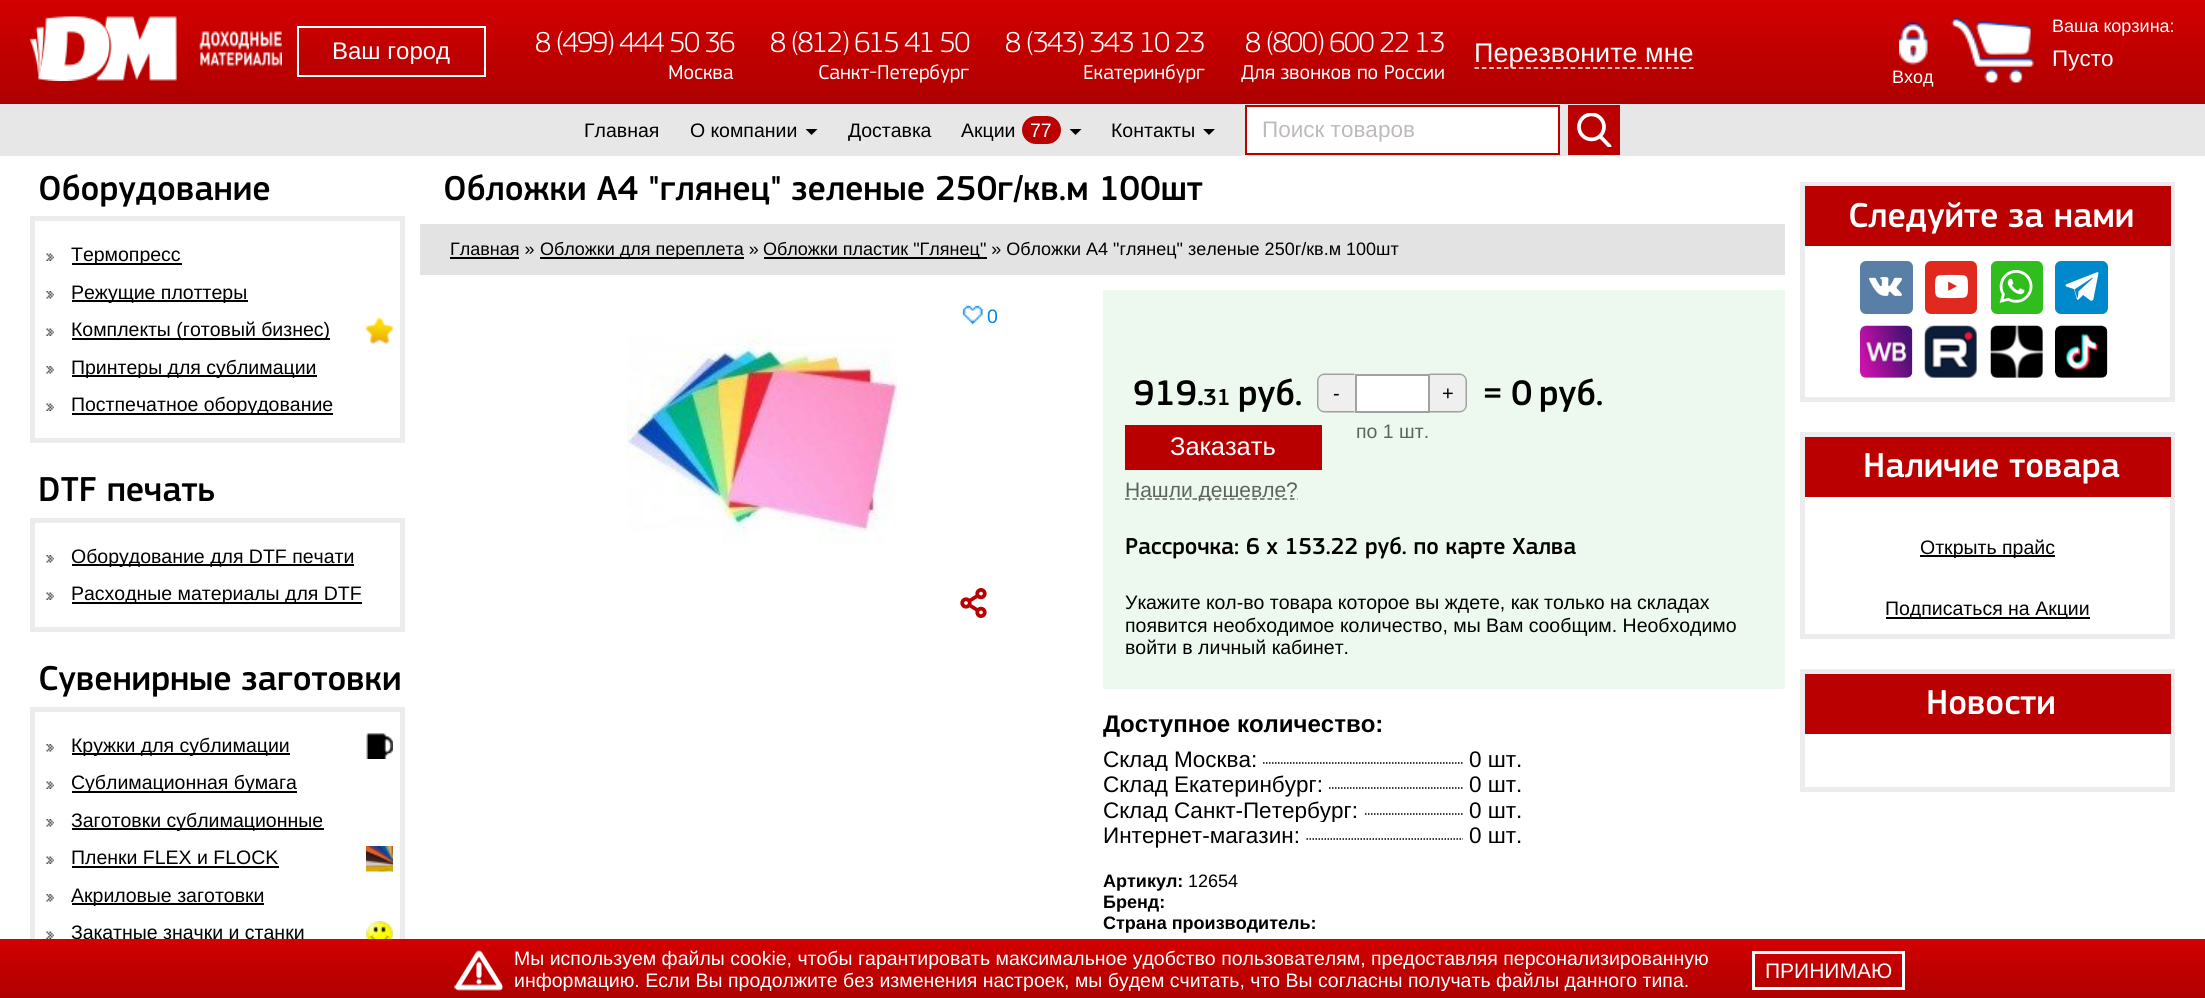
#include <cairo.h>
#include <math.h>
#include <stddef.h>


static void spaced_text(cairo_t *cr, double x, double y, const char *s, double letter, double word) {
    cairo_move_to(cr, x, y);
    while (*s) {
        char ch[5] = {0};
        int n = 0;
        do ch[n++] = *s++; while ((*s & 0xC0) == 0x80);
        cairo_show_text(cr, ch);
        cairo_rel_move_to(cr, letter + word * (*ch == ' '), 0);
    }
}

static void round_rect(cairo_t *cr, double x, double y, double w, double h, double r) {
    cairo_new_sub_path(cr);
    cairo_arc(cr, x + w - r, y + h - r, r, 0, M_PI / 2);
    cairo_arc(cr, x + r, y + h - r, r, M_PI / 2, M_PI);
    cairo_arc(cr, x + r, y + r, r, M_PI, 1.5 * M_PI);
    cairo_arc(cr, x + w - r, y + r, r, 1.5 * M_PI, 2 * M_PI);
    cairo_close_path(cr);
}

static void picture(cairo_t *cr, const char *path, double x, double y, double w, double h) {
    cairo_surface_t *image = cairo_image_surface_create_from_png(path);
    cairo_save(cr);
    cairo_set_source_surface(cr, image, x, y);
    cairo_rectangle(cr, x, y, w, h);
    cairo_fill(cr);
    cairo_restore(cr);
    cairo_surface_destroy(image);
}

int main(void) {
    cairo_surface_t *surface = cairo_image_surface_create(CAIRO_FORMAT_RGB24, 2205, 998);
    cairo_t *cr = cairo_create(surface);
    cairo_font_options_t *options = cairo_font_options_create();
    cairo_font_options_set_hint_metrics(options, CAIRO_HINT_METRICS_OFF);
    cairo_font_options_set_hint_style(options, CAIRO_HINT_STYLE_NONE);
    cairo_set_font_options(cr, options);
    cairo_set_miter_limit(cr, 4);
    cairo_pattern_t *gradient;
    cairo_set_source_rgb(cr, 1, 1, 1);
    cairo_paint(cr);
    gradient = cairo_pattern_create_linear(1103, 104, 1103, 0);
    cairo_pattern_add_color_stop_rgba(gradient, 0, 0.682, 0, 0, 1);
    cairo_pattern_add_color_stop_rgba(gradient, 1, 0.827, 0, 0, 1);
    cairo_set_source(cr, gradient);
    cairo_pattern_destroy(gradient);
    cairo_rectangle(cr, 0, 0, 2205, 104);
    cairo_fill(cr);
    picture(cr, "img1.png", 30, 16, 252, 65);
    cairo_rectangle(cr, 298, 27, 187, 49);
    cairo_set_source_rgb(cr, 1, 1, 1);
    cairo_stroke(cr);
    cairo_select_font_face(cr, "Liberation Sans", CAIRO_FONT_SLANT_NORMAL, CAIRO_FONT_WEIGHT_NORMAL);
    cairo_set_font_size(cr, 24);
    cairo_move_to(cr, 332, 59);
    cairo_show_text(cr, "Ваш город");
    cairo_select_font_face(cr, "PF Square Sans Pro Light", CAIRO_FONT_SLANT_NORMAL, CAIRO_FONT_WEIGHT_NORMAL);
    cairo_set_font_size(cr, 30);
    spaced_text(cr, 535, 52, "8 (499) 444 50 36", -1.5, 0);
    cairo_select_font_face(cr, "PF Square Sans Pro", CAIRO_FONT_SLANT_NORMAL, CAIRO_FONT_WEIGHT_NORMAL);
    cairo_set_font_size(cr, 21);
    cairo_move_to(cr, 668, 79);
    cairo_show_text(cr, "Москва");
    cairo_select_font_face(cr, "PF Square Sans Pro Light", CAIRO_FONT_SLANT_NORMAL, CAIRO_FONT_WEIGHT_NORMAL);
    cairo_set_font_size(cr, 30);
    spaced_text(cr, 770, 52, "8 (812) 615 41 50", -1.5, 0);
    cairo_select_font_face(cr, "PF Square Sans Pro", CAIRO_FONT_SLANT_NORMAL, CAIRO_FONT_WEIGHT_NORMAL);
    cairo_set_font_size(cr, 21);
    cairo_move_to(cr, 818, 79);
    cairo_show_text(cr, "Санкт-Петербург");
    cairo_select_font_face(cr, "PF Square Sans Pro Light", CAIRO_FONT_SLANT_NORMAL, CAIRO_FONT_WEIGHT_NORMAL);
    cairo_set_font_size(cr, 30);
    spaced_text(cr, 1005, 52, "8 (343) 343 10 23", -1.5, 0);
    cairo_select_font_face(cr, "PF Square Sans Pro", CAIRO_FONT_SLANT_NORMAL, CAIRO_FONT_WEIGHT_NORMAL);
    cairo_set_font_size(cr, 21);
    cairo_move_to(cr, 1083, 79);
    cairo_show_text(cr, "Екатеринбург");
    cairo_select_font_face(cr, "PF Square Sans Pro Light", CAIRO_FONT_SLANT_NORMAL, CAIRO_FONT_WEIGHT_NORMAL);
    cairo_set_font_size(cr, 30);
    spaced_text(cr, 1245, 52, "8 (800) 600 22 13", -1.5, 0);
    cairo_select_font_face(cr, "PF Square Sans Pro", CAIRO_FONT_SLANT_NORMAL, CAIRO_FONT_WEIGHT_NORMAL);
    cairo_set_font_size(cr, 21);
    cairo_move_to(cr, 1241, 79);
    cairo_show_text(cr, "Для звонков по России");
    cairo_new_path(cr);
    cairo_move_to(cr, 1474.5, 68);
    cairo_line_to(cr, 1693.5, 68);
    cairo_set_line_width(cr, 1.5);
    cairo_set_dash(cr, (double[]){4.5, 2.9}, 2, 0);
    cairo_stroke(cr);
    cairo_select_font_face(cr, "Liberation Sans", CAIRO_FONT_SLANT_NORMAL, CAIRO_FONT_WEIGHT_NORMAL);
    cairo_set_font_size(cr, 27);
    cairo_move_to(cr, 1474, 62);
    cairo_show_text(cr, "Перезвоните мне");
    picture(cr, "img2.png", 1951, 18, 83, 66);
    cairo_set_font_size(cr, 18);
    cairo_move_to(cr, 2052, 32);
    cairo_show_text(cr, "Ваша корзина:");
    cairo_set_font_size(cr, 22.5);
    cairo_move_to(cr, 2052, 66);
    cairo_show_text(cr, "Пусто");
    picture(cr, "img3.png", 1899, 22, 29, 43);
    cairo_set_font_size(cr, 18);
    cairo_move_to(cr, 1892, 83);
    cairo_show_text(cr, "Вход");
    cairo_set_source_rgb(cr, 0.906, 0.906, 0.906);
    cairo_rectangle(cr, 0, 104, 2205, 52);
    cairo_fill(cr);
    cairo_set_font_size(cr, 19.5);
    cairo_set_source_rgb(cr, 0, 0, 0);
    cairo_move_to(cr, 584, 137);
    cairo_show_text(cr, "Главная");
    cairo_move_to(cr, 690, 137);
    cairo_show_text(cr, "О компании");
    cairo_new_path(cr);
    cairo_move_to(cr, 805.5, 129);
    cairo_line_to(cr, 817.5, 129);
    cairo_line_to(cr, 811.5, 135);
    cairo_close_path(cr);
    cairo_fill(cr);
    cairo_move_to(cr, 848, 137);
    cairo_show_text(cr, "Доставка");
    cairo_move_to(cr, 961, 137);
    cairo_show_text(cr, "Акции");
    cairo_set_source_rgb(cr, 0.729, 0, 0);
    round_rect(cr, 1022, 116, 39, 28, 14);
    cairo_fill(cr);
    cairo_set_source_rgb(cr, 1, 1, 1);
    cairo_move_to(cr, 1030, 137);
    cairo_show_text(cr, "77");
    cairo_set_source_rgb(cr, 0, 0, 0);
    cairo_new_path(cr);
    cairo_move_to(cr, 1069.5, 129);
    cairo_line_to(cr, 1081.5, 129);
    cairo_line_to(cr, 1075.5, 135);
    cairo_close_path(cr);
    cairo_fill(cr);
    cairo_move_to(cr, 1111, 137);
    cairo_show_text(cr, "Контакты");
    cairo_new_path(cr);
    cairo_move_to(cr, 1203, 129);
    cairo_line_to(cr, 1215, 129);
    cairo_line_to(cr, 1209, 135);
    cairo_close_path(cr);
    cairo_fill(cr);
    cairo_set_source_rgb(cr, 1, 1, 1);
    cairo_rectangle(cr, 1246, 106, 313, 48);
    cairo_fill_preserve(cr);
    cairo_set_source_rgb(cr, 0.729, 0, 0);
    cairo_set_line_width(cr, 2);
    cairo_set_dash(cr, NULL, 0, 0);
    cairo_stroke(cr);
    cairo_set_font_size(cr, 22.5);
    cairo_set_source_rgb(cr, 0.749, 0.729, 0.729);
    cairo_move_to(cr, 1262, 137);
    cairo_show_text(cr, "Поиск товаров");
    cairo_set_source_rgb(cr, 0.729, 0, 0);
    cairo_rectangle(cr, 1568, 105, 52, 50);
    cairo_fill(cr);
    picture(cr, "img4.png", 1577, 113, 35, 34);
    cairo_select_font_face(cr, "PF Square Sans Pro Medium", CAIRO_FONT_SLANT_NORMAL, CAIRO_FONT_WEIGHT_NORMAL);
    cairo_set_font_size(cr, 36);
    cairo_set_source_rgb(cr, 0, 0, 0);
    cairo_move_to(cr, 38, 200);
    cairo_show_text(cr, "Оборудование");
    cairo_rectangle(cr, 32.5, 218.5, 370, 222);
    cairo_set_source_rgb(cr, 0.925, 0.925, 0.933);
    cairo_set_line_width(cr, 5);
    cairo_stroke(cr);
    picture(cr, "img5.png", 46, 253, 8, 8);
    cairo_set_source_rgb(cr, 0, 0, 0);
    cairo_rectangle(cr, 72, 263, 110, 2);
    cairo_fill(cr);
    cairo_select_font_face(cr, "Liberation Sans", CAIRO_FONT_SLANT_NORMAL, CAIRO_FONT_WEIGHT_NORMAL);
    cairo_set_font_size(cr, 19.5);
    cairo_move_to(cr, 71, 261);
    cairo_show_text(cr, "Термопресс");
    picture(cr, "img6.png", 46, 291, 8, 8);
    cairo_rectangle(cr, 72, 300, 176, 2);
    cairo_fill(cr);
    cairo_move_to(cr, 71, 299);
    cairo_show_text(cr, "Режущие плоттеры");
    picture(cr, "img5.png", 46, 328, 8, 8);
    cairo_rectangle(cr, 72, 338, 258, 2);
    cairo_fill(cr);
    cairo_move_to(cr, 71, 336);
    cairo_show_text(cr, "Комплекты (готовый бизнес)");
    picture(cr, "img7.png", 366, 318, 27, 26);
    picture(cr, "img6.png", 46, 366, 8, 8);
    cairo_rectangle(cr, 72, 375, 245, 2);
    cairo_fill(cr);
    cairo_move_to(cr, 71, 374);
    cairo_show_text(cr, "Принтеры для сублимации");
    picture(cr, "img5.png", 46, 403, 8, 8);
    cairo_rectangle(cr, 72, 413, 261, 2);
    cairo_fill(cr);
    cairo_move_to(cr, 71, 411);
    cairo_show_text(cr, "Постпечатное оборудование");
    cairo_select_font_face(cr, "PF Square Sans Pro Medium", CAIRO_FONT_SLANT_NORMAL, CAIRO_FONT_WEIGHT_NORMAL);
    cairo_set_font_size(cr, 36);
    cairo_move_to(cr, 38, 501);
    cairo_show_text(cr, "DTF печать");
    cairo_rectangle(cr, 32.5, 520.5, 370, 109);
    cairo_set_source_rgb(cr, 0.925, 0.925, 0.933);
    cairo_stroke(cr);
    picture(cr, "img6.png", 46, 555, 8, 8);
    cairo_set_source_rgb(cr, 0, 0, 0);
    cairo_rectangle(cr, 72, 564, 282, 2);
    cairo_fill(cr);
    cairo_select_font_face(cr, "Liberation Sans", CAIRO_FONT_SLANT_NORMAL, CAIRO_FONT_WEIGHT_NORMAL);
    cairo_set_font_size(cr, 19.5);
    cairo_move_to(cr, 71, 563);
    cairo_show_text(cr, "Оборудование для DTF печати");
    picture(cr, "img5.png", 46, 592, 8, 8);
    cairo_rectangle(cr, 72, 602, 290, 2);
    cairo_fill(cr);
    cairo_move_to(cr, 71, 600);
    cairo_show_text(cr, "Расходные материалы для DTF");
    cairo_select_font_face(cr, "PF Square Sans Pro Medium", CAIRO_FONT_SLANT_NORMAL, CAIRO_FONT_WEIGHT_NORMAL);
    cairo_set_font_size(cr, 36);
    cairo_move_to(cr, 38, 690);
    cairo_show_text(cr, "Сувенирные заготовки");
    cairo_rectangle(cr, 32.5, 709.5, 370, 259);
    cairo_set_source_rgb(cr, 0.925, 0.925, 0.933);
    cairo_stroke(cr);
    picture(cr, "img6.png", 46, 744, 8, 8);
    cairo_set_source_rgb(cr, 0, 0, 0);
    cairo_rectangle(cr, 72, 753, 218, 2);
    cairo_fill(cr);
    cairo_select_font_face(cr, "Liberation Sans", CAIRO_FONT_SLANT_NORMAL, CAIRO_FONT_WEIGHT_NORMAL);
    cairo_set_font_size(cr, 19.5);
    cairo_move_to(cr, 71, 752);
    cairo_show_text(cr, "Кружки для сублимации");
    picture(cr, "img8.png", 366, 733, 27, 26);
    picture(cr, "img5.png", 46, 781, 8, 8);
    cairo_rectangle(cr, 72, 791, 225, 2);
    cairo_fill(cr);
    cairo_move_to(cr, 71, 789);
    cairo_show_text(cr, "Сублимационная бумага");
    picture(cr, "img6.png", 46, 819, 8, 8);
    cairo_rectangle(cr, 72, 828, 252, 2);
    cairo_fill(cr);
    cairo_move_to(cr, 71, 827);
    cairo_show_text(cr, "Заготовки сублимационные");
    picture(cr, "img5.png", 46, 856, 8, 8);
    cairo_move_to(cr, 71, 864);
    cairo_show_text(cr, "Пленки FLEX и FLOCK");
    cairo_rectangle(cr, 72, 866, 207, 2);
    cairo_fill(cr);
    picture(cr, "img9.png", 366, 846, 27, 26);
    picture(cr, "img6.png", 46, 894, 8, 8);
    cairo_rectangle(cr, 72, 903, 192, 2);
    cairo_fill(cr);
    cairo_move_to(cr, 71, 902);
    cairo_show_text(cr, "Акриловые заготовки");
    picture(cr, "img5.png", 46, 931, 8, 8);
    cairo_move_to(cr, 71, 939);
    cairo_show_text(cr, "Закатные значки и станки");
    picture(cr, "img10.png", 366, 921, 27, 18);
    cairo_select_font_face(cr, "PF Square Sans Pro Medium", CAIRO_FONT_SLANT_NORMAL, CAIRO_FONT_WEIGHT_NORMAL);
    cairo_set_font_size(cr, 36);
    cairo_move_to(cr, 443, 200);
    cairo_show_text(cr, "Обложки А4 \"глянец\" зеленые 250г/кв.м 100шт");
    cairo_set_source_rgb(cr, 0.89, 0.89, 0.89);
    cairo_rectangle(cr, 420, 224, 1365, 51);
    cairo_fill(cr);
    cairo_select_font_face(cr, "Liberation Sans", CAIRO_FONT_SLANT_NORMAL, CAIRO_FONT_WEIGHT_NORMAL);
    cairo_set_font_size(cr, 18);
    cairo_set_source_rgb(cr, 0, 0, 0);
    cairo_move_to(cr, 450, 255);
    cairo_show_text(cr, "Главная »");
    cairo_rectangle(cr, 450, 257, 69, 2);
    cairo_fill(cr);
    cairo_rectangle(cr, 540, 257, 204, 2);
    cairo_fill(cr);
    cairo_move_to(cr, 540, 255);
    cairo_show_text(cr, "Обложки для переплета »");
    cairo_rectangle(cr, 764, 257, 223, 2);
    cairo_fill(cr);
    cairo_move_to(cr, 763, 255);
    cairo_show_text(cr, "Обложки пластик \"Глянец\" » Обложки А4 \"глянец\" зеленые 250г/кв.м 100шт");
    picture(cr, "img11.png", 962, 305, 21, 20);
    cairo_set_font_size(cr, 19.5);
    cairo_set_source_rgb(cr, 0.012, 0.522, 0.882);
    cairo_move_to(cr, 987, 323);
    cairo_show_text(cr, "0");
    picture(cr, "img12.png", 627, 329, 270, 216);
    picture(cr, "img13.png", 960, 588, 27, 30);
    cairo_set_source_rgb(cr, 0.929, 0.969, 0.933);
    cairo_rectangle(cr, 1103, 290, 682, 399);
    cairo_fill(cr);
    cairo_select_font_face(cr, "PF Square Sans Pro Medium", CAIRO_FONT_SLANT_NORMAL, CAIRO_FONT_WEIGHT_NORMAL);
    cairo_set_font_size(cr, 37);
    cairo_set_source_rgb(cr, 0, 0, 0);
    cairo_move_to(cr, 1133, 405);
    cairo_show_text(cr, "919.");
    cairo_set_font_size(cr, 24);
    cairo_move_to(cr, 1203, 405);
    cairo_show_text(cr, "31");
    cairo_set_font_size(cr, 37);
    cairo_move_to(cr, 1238, 405);
    cairo_show_text(cr, "руб.");
    cairo_set_source_rgb(cr, 0.937, 0.937, 0.937);
    cairo_new_path(cr);
    cairo_move_to(cr, 1325, 375);
    cairo_line_to(cr, 1355, 375);
    cairo_line_to(cr, 1355, 411);
    cairo_line_to(cr, 1325, 411);
    cairo_curve_to(cr, 1321.5, 411, 1319, 408.5, 1319, 405);
    cairo_line_to(cr, 1319, 381);
    cairo_curve_to(cr, 1319, 377.5, 1321.5, 375, 1325, 375);
    cairo_close_path(cr);
    cairo_fill(cr);
    cairo_set_source_rgb(cr, 0.631, 0.631, 0.631);
    cairo_set_fill_rule(cr, CAIRO_FILL_RULE_EVEN_ODD);
    cairo_new_path(cr);
    cairo_move_to(cr, 1324.5, 373.5);
    cairo_line_to(cr, 1354.5, 373.5);
    cairo_line_to(cr, 1354.5, 412.5);
    cairo_line_to(cr, 1324.5, 412.5);
    cairo_curve_to(cr, 1320.5, 412.5, 1317, 409, 1317, 405);
    cairo_line_to(cr, 1317, 381);
    cairo_curve_to(cr, 1317, 377, 1320.5, 373.5, 1324.5, 373.5);
    cairo_close_path(cr);
    cairo_move_to(cr, 1324.5, 375);
    cairo_line_to(cr, 1354.5, 375);
    cairo_line_to(cr, 1354.5, 411);
    cairo_line_to(cr, 1324.5, 411);
    cairo_curve_to(cr, 1321, 411, 1318.5, 408.5, 1318.5, 405);
    cairo_line_to(cr, 1318.5, 381);
    cairo_curve_to(cr, 1318.5, 377.5, 1321, 375, 1324.5, 375);
    cairo_close_path(cr);
    cairo_fill(cr);
    cairo_select_font_face(cr, "Liberation Sans", CAIRO_FONT_SLANT_NORMAL, CAIRO_FONT_WEIGHT_NORMAL);
    cairo_set_font_size(cr, 20);
    cairo_set_source_rgb(cr, 0, 0, 0);
    cairo_move_to(cr, 1333, 400);
    cairo_show_text(cr, "-");
    cairo_set_source_rgb(cr, 1, 1, 1);
    cairo_rectangle(cr, 1356, 375, 73, 37);
    cairo_fill_preserve(cr);
    cairo_set_source_rgb(cr, 0.631, 0.631, 0.631);
    cairo_set_line_width(cr, 2);
    cairo_stroke(cr);
    cairo_set_source_rgb(cr, 0.937, 0.937, 0.937);
    cairo_new_path(cr);
    cairo_move_to(cr, 1430, 375);
    cairo_line_to(cr, 1460, 375);
    cairo_curve_to(cr, 1463.5, 375, 1466, 377.5, 1466, 381);
    cairo_line_to(cr, 1466, 405);
    cairo_curve_to(cr, 1466, 408.5, 1463.5, 411, 1460, 411);
    cairo_line_to(cr, 1430, 411);
    cairo_close_path(cr);
    cairo_fill(cr);
    cairo_set_source_rgb(cr, 0.631, 0.631, 0.631);
    cairo_new_path(cr);
    cairo_move_to(cr, 1429.5, 373.5);
    cairo_line_to(cr, 1459.5, 373.5);
    cairo_curve_to(cr, 1463.5, 373.5, 1467, 377, 1467, 381);
    cairo_line_to(cr, 1467, 405);
    cairo_curve_to(cr, 1467, 409, 1463.5, 412.5, 1459.5, 412.5);
    cairo_line_to(cr, 1429.5, 412.5);
    cairo_close_path(cr);
    cairo_move_to(cr, 1429.5, 375);
    cairo_line_to(cr, 1459.5, 375);
    cairo_curve_to(cr, 1463, 375, 1465.5, 377.5, 1465.5, 381);
    cairo_line_to(cr, 1465.5, 405);
    cairo_curve_to(cr, 1465.5, 408.5, 1463, 411, 1459.5, 411);
    cairo_line_to(cr, 1429.5, 411);
    cairo_close_path(cr);
    cairo_fill(cr);
    cairo_set_source_rgb(cr, 0, 0, 0);
    cairo_move_to(cr, 1442, 400);
    cairo_show_text(cr, "+");
    cairo_set_font_size(cr, 19.5);
    cairo_set_source_rgb(cr, 0.373, 0.388, 0.373);
    cairo_move_to(cr, 1356, 438);
    cairo_show_text(cr, "по 1 шт.");
    cairo_select_font_face(cr, "PF Square Sans Pro Medium", CAIRO_FONT_SLANT_NORMAL, CAIRO_FONT_WEIGHT_NORMAL);
    cairo_set_font_size(cr, 37);
    cairo_set_source_rgb(cr, 0, 0, 0);
    cairo_move_to(cr, 1482, 405);
    cairo_show_text(cr, "=");
    cairo_move_to(cr, 1511, 405);
    cairo_show_text(cr, "0");
    cairo_move_to(cr, 1539, 405);
    cairo_show_text(cr, "руб.");
    cairo_set_source_rgb(cr, 0.725, 0, 0);
    cairo_rectangle(cr, 1125, 425, 197, 45);
    cairo_fill(cr);
    cairo_select_font_face(cr, "Liberation Sans", CAIRO_FONT_SLANT_NORMAL, CAIRO_FONT_WEIGHT_NORMAL);
    cairo_set_font_size(cr, 25.5);
    cairo_set_source_rgb(cr, 1, 1, 1);
    cairo_move_to(cr, 1170, 455);
    cairo_show_text(cr, "Заказать");
    cairo_new_path(cr);
    cairo_move_to(cr, 1125, 499);
    cairo_line_to(cr, 1298, 499);
    cairo_set_source_rgb(cr, 0.373, 0.388, 0.373);
    cairo_set_line_width(cr, 1.5);
    cairo_set_dash(cr, (double[]){4.5, 3}, 2, 0);
    cairo_stroke(cr);
    cairo_set_font_size(cr, 21);
    cairo_move_to(cr, 1125, 497);
    cairo_show_text(cr, "Нашли дешевле?");
    cairo_select_font_face(cr, "PF Square Sans Pro Medium", CAIRO_FONT_SLANT_NORMAL, CAIRO_FONT_WEIGHT_NORMAL);
    cairo_set_font_size(cr, 24);
    cairo_set_source_rgb(cr, 0, 0, 0);
    cairo_move_to(cr, 1125, 554);
    cairo_show_text(cr, "Рассрочка: 6 x 153.22 руб. по карте Халва");
    cairo_select_font_face(cr, "Liberation Sans", CAIRO_FONT_SLANT_NORMAL, CAIRO_FONT_WEIGHT_NORMAL);
    cairo_set_font_size(cr, 19.5);
    cairo_move_to(cr, 1125, 609);
    cairo_show_text(cr, "Укажите кол-во товара которое вы ждете, как только на складах");
    cairo_move_to(cr, 1125, 632);
    cairo_show_text(cr, "появится необходимое количество, мы Вам сообщим. Необходимо");
    cairo_move_to(cr, 1125, 654);
    cairo_show_text(cr, "войти в личный кабинет.");
    cairo_select_font_face(cr, "Liberation Sans", CAIRO_FONT_SLANT_NORMAL, CAIRO_FONT_WEIGHT_BOLD);
    cairo_set_font_size(cr, 24);
    cairo_move_to(cr, 1103, 732);
    cairo_show_text(cr, "Доступное количество:");
    cairo_save(cr);
    cairo_set_fill_rule(cr, CAIRO_FILL_RULE_WINDING);
    cairo_rectangle(cr, 1103, 746, 360, 25);
    cairo_clip(cr);
    cairo_select_font_face(cr, "Liberation Sans", CAIRO_FONT_SLANT_NORMAL, CAIRO_FONT_WEIGHT_NORMAL);
    cairo_set_font_size(cr, 22.5);
    cairo_move_to(cr, 1103, 767);
    cairo_show_text(cr, "Склад Москва:");
    cairo_new_path(cr);
    cairo_move_to(cr, 1263, 763);
    cairo_line_to(cr, 1624.5, 763);
    cairo_set_dash(cr, (double[]){1.5, 1.5}, 2, 0);
    cairo_stroke(cr);
    cairo_restore(cr);
    cairo_select_font_face(cr, "Liberation Sans", CAIRO_FONT_SLANT_NORMAL, CAIRO_FONT_WEIGHT_NORMAL);
    cairo_set_font_size(cr, 22.5);
    cairo_move_to(cr, 1469, 767);
    cairo_show_text(cr, "0 шт.");
    cairo_move_to(cr, 1103, 792);
    cairo_show_text(cr, "Склад Екатеринбург:");
    cairo_save(cr);
    cairo_set_fill_rule(cr, CAIRO_FILL_RULE_WINDING);
    cairo_rectangle(cr, 1103, 771, 360, 26);
    cairo_clip(cr);
    cairo_new_path(cr);
    cairo_move_to(cr, 1329, 788);
    cairo_line_to(cr, 1689, 788);
    cairo_set_dash(cr, (double[]){1.5, 1.5}, 2, 0);
    cairo_stroke(cr);
    cairo_restore(cr);
    cairo_move_to(cr, 1469, 792);
    cairo_show_text(cr, "0 шт.");
    cairo_save(cr);
    cairo_set_fill_rule(cr, CAIRO_FILL_RULE_WINDING);
    cairo_rectangle(cr, 1103, 797, 360, 25);
    cairo_clip(cr);
    cairo_move_to(cr, 1103, 818);
    cairo_show_text(cr, "Склад Санкт-Петербург:");
    cairo_new_path(cr);
    cairo_move_to(cr, 1365, 814);
    cairo_line_to(cr, 1725, 814);
    cairo_set_dash(cr, (double[]){1.5, 1.5}, 2, 0);
    cairo_stroke(cr);
    cairo_restore(cr);
    cairo_move_to(cr, 1469, 818);
    cairo_show_text(cr, "0 шт.");
    cairo_move_to(cr, 1103, 843);
    cairo_show_text(cr, "Интернет-магазин:");
    cairo_save(cr);
    cairo_set_fill_rule(cr, CAIRO_FILL_RULE_WINDING);
    cairo_rectangle(cr, 1103, 822, 360, 26);
    cairo_clip(cr);
    cairo_new_path(cr);
    cairo_move_to(cr, 1306.5, 839);
    cairo_line_to(cr, 1666.5, 839);
    cairo_set_dash(cr, (double[]){1.5, 1.5}, 2, 0);
    cairo_stroke(cr);
    cairo_restore(cr);
    cairo_move_to(cr, 1469, 843);
    cairo_show_text(cr, "0 шт.");
    cairo_select_font_face(cr, "Liberation Sans", CAIRO_FONT_SLANT_NORMAL, CAIRO_FONT_WEIGHT_BOLD);
    cairo_set_font_size(cr, 18);
    cairo_move_to(cr, 1103, 887);
    cairo_show_text(cr, "Артикул:");
    cairo_select_font_face(cr, "Liberation Sans", CAIRO_FONT_SLANT_NORMAL, CAIRO_FONT_WEIGHT_NORMAL);
    cairo_move_to(cr, 1188, 887);
    cairo_show_text(cr, "12654");
    cairo_select_font_face(cr, "Liberation Sans", CAIRO_FONT_SLANT_NORMAL, CAIRO_FONT_WEIGHT_BOLD);
    cairo_move_to(cr, 1103, 908);
    cairo_show_text(cr, "Бренд:");
    cairo_move_to(cr, 1103, 929);
    cairo_show_text(cr, "Страна производитель:");
    cairo_rectangle(cr, 1802.5, 184.5, 370, 215);
    cairo_set_source_rgb(cr, 0.925, 0.925, 0.933);
    cairo_set_line_width(cr, 5);
    cairo_set_dash(cr, NULL, 0, 0);
    cairo_stroke(cr);
    cairo_set_source_rgb(cr, 0.729, 0, 0);
    cairo_rectangle(cr, 1805, 186, 366, 60);
    cairo_fill(cr);
    cairo_select_font_face(cr, "PF Square Sans Pro Medium", CAIRO_FONT_SLANT_NORMAL, CAIRO_FONT_WEIGHT_NORMAL);
    cairo_set_font_size(cr, 36);
    cairo_set_source_rgb(cr, 1, 1, 1);
    cairo_move_to(cr, 1848, 227);
    cairo_show_text(cr, "Следуйте за нами");
    cairo_set_source_rgb(cr, 0.353, 0.498, 0.651);
    round_rect(cr, 1860, 261, 53, 53, 6);
    cairo_fill(cr);
    picture(cr, "img14.png", 1869, 277, 33, 19);
    cairo_set_source_rgb(cr, 0.878, 0.165, 0.125);
    round_rect(cr, 1925, 261, 52, 53, 6);
    cairo_fill(cr);
    picture(cr, "img15.png", 1935, 274, 33, 25);
    cairo_set_source_rgb(cr, 0.188, 0.745, 0.118);
    round_rect(cr, 1991, 261, 52, 53, 6);
    cairo_fill(cr);
    picture(cr, "img16.png", 1999, 270, 34, 33);
    cairo_set_source_rgb(cr, 0, 0.533, 0.8);
    round_rect(cr, 2055, 261, 53, 53, 6);
    cairo_fill(cr);
    picture(cr, "img17.png", 2065, 272, 34, 29);
    picture(cr, "img18.png", 1860, 325, 53, 53);
    picture(cr, "img19.png", 1924, 325, 53, 53);
    picture(cr, "img20.png", 1990, 325, 53, 53);
    picture(cr, "img21.png", 2055, 325, 53, 53);
    cairo_rectangle(cr, 1802.5, 434.5, 370, 202);
    cairo_set_source_rgb(cr, 0.925, 0.925, 0.933);
    cairo_stroke(cr);
    cairo_set_source_rgb(cr, 0.729, 0, 0);
    cairo_rectangle(cr, 1805, 437, 366, 60);
    cairo_fill(cr);
    cairo_set_source_rgb(cr, 1, 1, 1);
    cairo_move_to(cr, 1863, 477);
    cairo_show_text(cr, "Наличие товара");
    cairo_set_source_rgb(cr, 0, 0, 0);
    cairo_rectangle(cr, 1920, 555, 135, 2);
    cairo_fill(cr);
    cairo_select_font_face(cr, "Liberation Sans", CAIRO_FONT_SLANT_NORMAL, CAIRO_FONT_WEIGHT_NORMAL);
    cairo_set_font_size(cr, 19.5);
    cairo_move_to(cr, 1920, 554);
    cairo_show_text(cr, "Открыть прайс");
    cairo_rectangle(cr, 1886, 617, 204, 2);
    cairo_fill(cr);
    cairo_move_to(cr, 1885, 615);
    cairo_show_text(cr, "Подписаться на Акции");
    cairo_rectangle(cr, 1802.5, 671.5, 370, 118);
    cairo_set_source_rgb(cr, 0.925, 0.925, 0.933);
    cairo_stroke(cr);
    cairo_set_source_rgb(cr, 0.729, 0, 0);
    cairo_rectangle(cr, 1805, 674, 366, 60);
    cairo_fill(cr);
    cairo_select_font_face(cr, "PF Square Sans Pro Medium", CAIRO_FONT_SLANT_NORMAL, CAIRO_FONT_WEIGHT_NORMAL);
    cairo_set_font_size(cr, 36);
    cairo_set_source_rgb(cr, 1, 1, 1);
    cairo_move_to(cr, 1926, 714);
    cairo_show_text(cr, "Новости");
    gradient = cairo_pattern_create_linear(1103, 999, 1103, 939);
    cairo_pattern_add_color_stop_rgba(gradient, 0, 0.682, 0, 0, 1);
    cairo_pattern_add_color_stop_rgba(gradient, 1, 0.827, 0, 0, 1);
    cairo_set_source(cr, gradient);
    cairo_pattern_destroy(gradient);
    cairo_rectangle(cr, 0, 939, 2205, 59);
    cairo_fill(cr);
    picture(cr, "img22.png", 454, 950, 49, 41);
    cairo_select_font_face(cr, "Liberation Sans", CAIRO_FONT_SLANT_NORMAL, CAIRO_FONT_WEIGHT_NORMAL);
    cairo_set_font_size(cr, 19.5);
    cairo_set_source_rgb(cr, 1, 1, 1);
    cairo_move_to(cr, 514, 965);
    cairo_show_text(cr, "Мы используем файлы cookie, чтобы гарантировать максимальное удобство пользователям, предоставляя персонализированную");
    cairo_move_to(cr, 514, 987);
    cairo_show_text(cr, "информацию. Если Вы продолжите без изменения настроек, мы будем считать, что Вы согласны получать файлы данного типа.");
    cairo_rectangle(cr, 1753.5, 952.5, 150, 36);
    cairo_set_line_width(cr, 3);
    cairo_stroke(cr);
    cairo_set_font_size(cr, 21);
    cairo_move_to(cr, 1765, 978);
    cairo_show_text(cr, "ПРИНИМАЮ");
    cairo_surface_write_to_png(surface, "page.png");
    cairo_font_options_destroy(options);
    cairo_destroy(cr);
    cairo_surface_destroy(surface);
    return 0;
}
